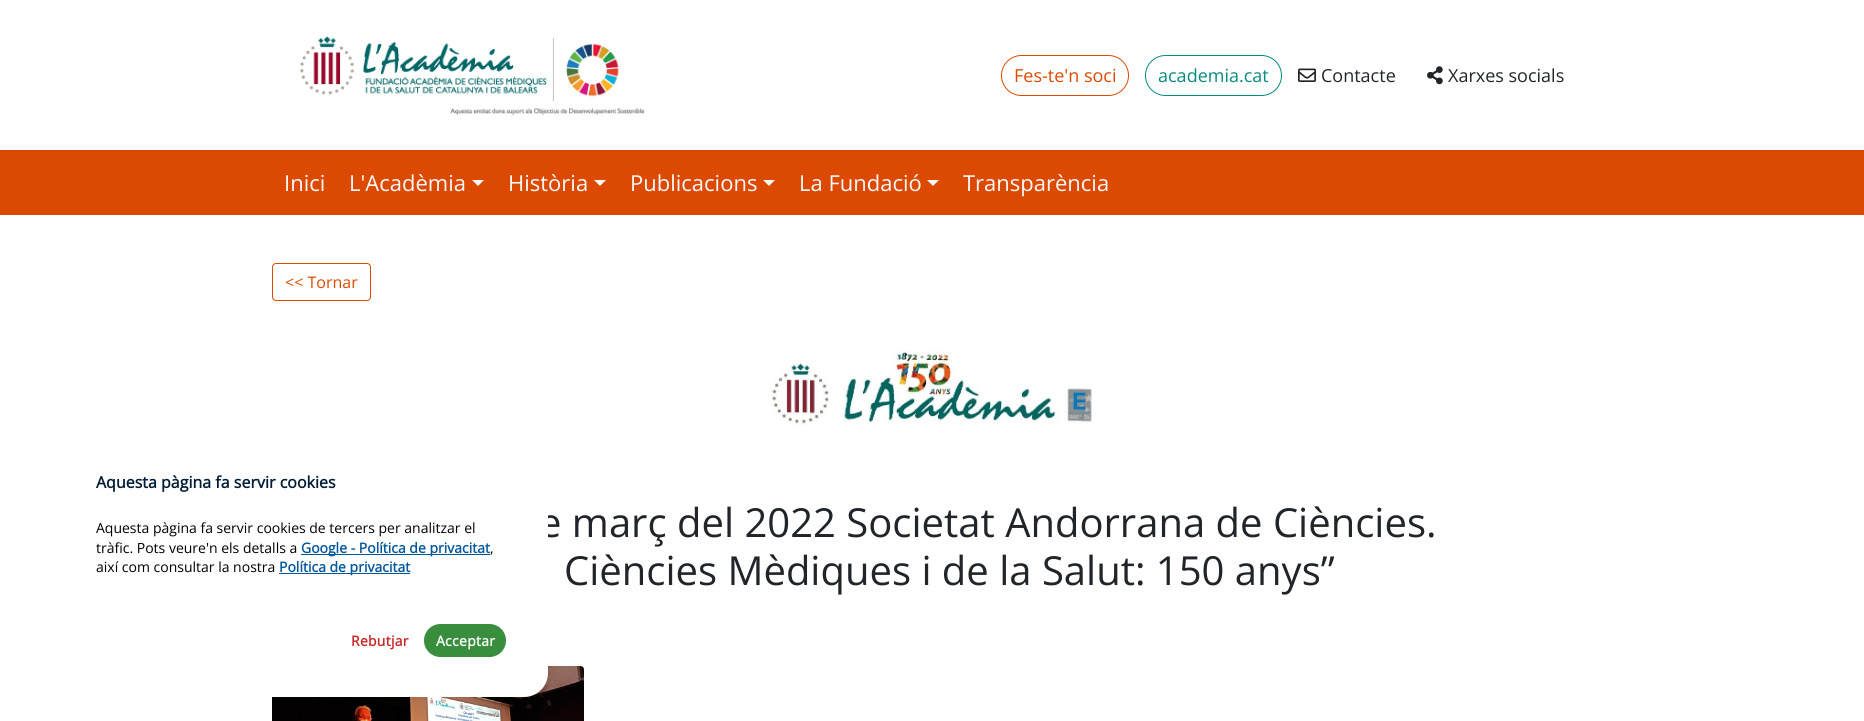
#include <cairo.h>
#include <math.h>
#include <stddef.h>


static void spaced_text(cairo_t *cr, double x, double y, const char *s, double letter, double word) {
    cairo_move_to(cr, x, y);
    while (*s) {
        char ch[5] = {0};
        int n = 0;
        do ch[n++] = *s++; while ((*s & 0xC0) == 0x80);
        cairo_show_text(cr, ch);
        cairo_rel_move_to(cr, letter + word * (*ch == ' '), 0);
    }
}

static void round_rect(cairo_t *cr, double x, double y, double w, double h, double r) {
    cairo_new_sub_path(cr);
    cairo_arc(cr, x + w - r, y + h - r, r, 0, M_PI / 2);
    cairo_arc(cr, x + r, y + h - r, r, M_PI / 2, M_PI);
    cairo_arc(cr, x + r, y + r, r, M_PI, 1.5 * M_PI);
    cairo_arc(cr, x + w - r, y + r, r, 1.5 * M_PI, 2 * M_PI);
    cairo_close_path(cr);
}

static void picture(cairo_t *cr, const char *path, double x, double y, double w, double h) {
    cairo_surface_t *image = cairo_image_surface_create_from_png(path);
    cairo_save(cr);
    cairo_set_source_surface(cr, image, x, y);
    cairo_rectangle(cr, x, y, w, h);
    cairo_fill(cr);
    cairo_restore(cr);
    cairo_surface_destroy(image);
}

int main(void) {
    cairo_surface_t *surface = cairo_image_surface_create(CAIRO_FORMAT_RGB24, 1864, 721);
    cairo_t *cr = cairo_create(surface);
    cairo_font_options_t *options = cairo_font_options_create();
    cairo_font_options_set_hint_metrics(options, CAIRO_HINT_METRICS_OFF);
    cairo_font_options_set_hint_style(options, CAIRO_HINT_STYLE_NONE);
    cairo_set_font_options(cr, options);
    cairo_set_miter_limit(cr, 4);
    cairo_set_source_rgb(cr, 1, 1, 1);
    cairo_paint(cr);
    picture(cr, "img1.png", 300, 36, 345, 80);
    round_rect(cr, 1001.5, 55.5, 127, 40, 20);
    cairo_set_source_rgb(cr, 0.859, 0.29, 0);
    cairo_set_line_width(cr, 1);
    cairo_stroke(cr);
    cairo_select_font_face(cr, "Open Sans", CAIRO_FONT_SLANT_NORMAL, CAIRO_FONT_WEIGHT_NORMAL);
    cairo_set_font_size(cr, 18);
    cairo_move_to(cr, 1014, 82);
    cairo_show_text(cr, "Fes-te'n soci");
    round_rect(cr, 1145.5, 55.5, 136, 40, 20);
    cairo_set_source_rgb(cr, 0.024, 0.545, 0.502);
    cairo_stroke(cr);
    cairo_move_to(cr, 1158, 82);
    cairo_show_text(cr, "academia.cat");
    picture(cr, "img2.png", 1298, 68, 18, 14);
    cairo_set_source_rgb(cr, 0.129, 0.145, 0.161);
    cairo_move_to(cr, 1321, 82);
    cairo_show_text(cr, "Contacte");
    picture(cr, "img3.png", 1427, 66, 16, 19);
    cairo_move_to(cr, 1448, 82);
    cairo_show_text(cr, "Xarxes socials");
    cairo_set_source_rgb(cr, 0.859, 0.29, 0);
    cairo_rectangle(cr, 0, 150, 1864, 65);
    cairo_fill(cr);
    cairo_set_font_size(cr, 22);
    cairo_set_source_rgb(cr, 0.973, 0.976, 0.98);
    cairo_move_to(cr, 284, 191);
    cairo_show_text(cr, "Inici");
    cairo_move_to(cr, 349, 191);
    cairo_show_text(cr, "L'Acadèmia");
    cairo_new_path(cr);
    cairo_move_to(cr, 472, 180);
    cairo_line_to(cr, 484, 180);
    cairo_line_to(cr, 478, 186);
    cairo_close_path(cr);
    cairo_fill(cr);
    cairo_move_to(cr, 508, 191);
    cairo_show_text(cr, "Història");
    cairo_new_path(cr);
    cairo_move_to(cr, 594, 180);
    cairo_line_to(cr, 606, 180);
    cairo_line_to(cr, 600, 186);
    cairo_close_path(cr);
    cairo_fill(cr);
    cairo_move_to(cr, 630, 191);
    cairo_show_text(cr, "Publicacions");
    cairo_new_path(cr);
    cairo_move_to(cr, 763, 180);
    cairo_line_to(cr, 775, 180);
    cairo_line_to(cr, 769, 186);
    cairo_close_path(cr);
    cairo_fill(cr);
    cairo_move_to(cr, 799, 191);
    cairo_show_text(cr, "La Fundació");
    cairo_new_path(cr);
    cairo_move_to(cr, 927, 180);
    cairo_line_to(cr, 939, 180);
    cairo_line_to(cr, 933, 186);
    cairo_close_path(cr);
    cairo_fill(cr);
    cairo_move_to(cr, 963, 191);
    cairo_show_text(cr, "Transparència");
    round_rect(cr, 272.5, 263.5, 98, 37, 3.5);
    cairo_set_source_rgb(cr, 0.859, 0.29, 0);
    cairo_stroke(cr);
    cairo_set_font_size(cr, 16);
    cairo_move_to(cr, 285, 288);
    cairo_show_text(cr, "<< Tornar");
    picture(cr, "img4.png", 771, 349, 321, 77);
    cairo_set_font_size(cr, 40);
    cairo_set_source_rgb(cr, 0.129, 0.145, 0.161);
    cairo_move_to(cr, 539, 537);
    cairo_show_text(cr, "e març del 2022 Societat Andorrana de Ciències.");
    cairo_move_to(cr, 564, 585);
    cairo_show_text(cr, "Ciències Mèdiques i de la Salut: 150 anys”");
    picture(cr, "img5.png", 272, 666, 312, 55);
    cairo_set_source_rgb(cr, 1, 1, 1);
    round_rect(cr, 48, 422, 500, 275, 24);
    cairo_fill(cr);
    cairo_select_font_face(cr, "Open Sans", CAIRO_FONT_SLANT_NORMAL, CAIRO_FONT_WEIGHT_BOLD);
    cairo_set_font_size(cr, 16);
    cairo_set_source_rgb(cr, 0, 0.114, 0.208);
    cairo_move_to(cr, 96, 488);
    cairo_show_text(cr, "Aquesta pàgina fa servir cookies");
    cairo_select_font_face(cr, "Open Sans", CAIRO_FONT_SLANT_NORMAL, CAIRO_FONT_WEIGHT_NORMAL);
    cairo_set_font_size(cr, 14);
    cairo_set_source_rgb(cr, 0, 0, 0);
    cairo_move_to(cr, 96, 533);
    cairo_show_text(cr, "Aquesta pàgina fa servir cookies de tercers per analitzar el");
    cairo_move_to(cr, 96, 553);
    cairo_show_text(cr, "tràfic. Pots veure'n els detalls a");
    cairo_set_source_rgb(cr, 0.004, 0.341, 0.608);
    cairo_rectangle(cr, 301, 554, 189, 1);
    cairo_fill(cr);
    cairo_select_font_face(cr, "Open Sans", CAIRO_FONT_SLANT_NORMAL, CAIRO_FONT_WEIGHT_BOLD);
    cairo_move_to(cr, 301, 553);
    cairo_show_text(cr, "Google - Política de privacitat");
    cairo_select_font_face(cr, "Open Sans", CAIRO_FONT_SLANT_NORMAL, CAIRO_FONT_WEIGHT_NORMAL);
    cairo_set_source_rgb(cr, 0, 0, 0);
    cairo_move_to(cr, 490, 553);
    cairo_show_text(cr, ",");
    cairo_move_to(cr, 96, 572);
    cairo_show_text(cr, "així com consultar la nostra");
    cairo_set_source_rgb(cr, 0.004, 0.341, 0.608);
    cairo_rectangle(cr, 279, 573, 131, 1);
    cairo_fill(cr);
    cairo_select_font_face(cr, "Open Sans", CAIRO_FONT_SLANT_NORMAL, CAIRO_FONT_WEIGHT_BOLD);
    cairo_move_to(cr, 279, 572);
    cairo_show_text(cr, "Política de privacitat");
    cairo_set_source_rgb(cr, 0.776, 0.157, 0.157);
    spaced_text(cr, 351, 646, "Rebutjar", 0.25, 0);
    cairo_set_source_rgb(cr, 0.22, 0.557, 0.235);
    round_rect(cr, 424, 624, 82, 33, 16.5);
    cairo_fill(cr);
    cairo_set_source_rgb(cr, 1, 1, 1);
    spaced_text(cr, 436, 646, "Acceptar", 0.25, 0);
    cairo_surface_write_to_png(surface, "page.png");
    cairo_font_options_destroy(options);
    cairo_destroy(cr);
    cairo_surface_destroy(surface);
    return 0;
}
